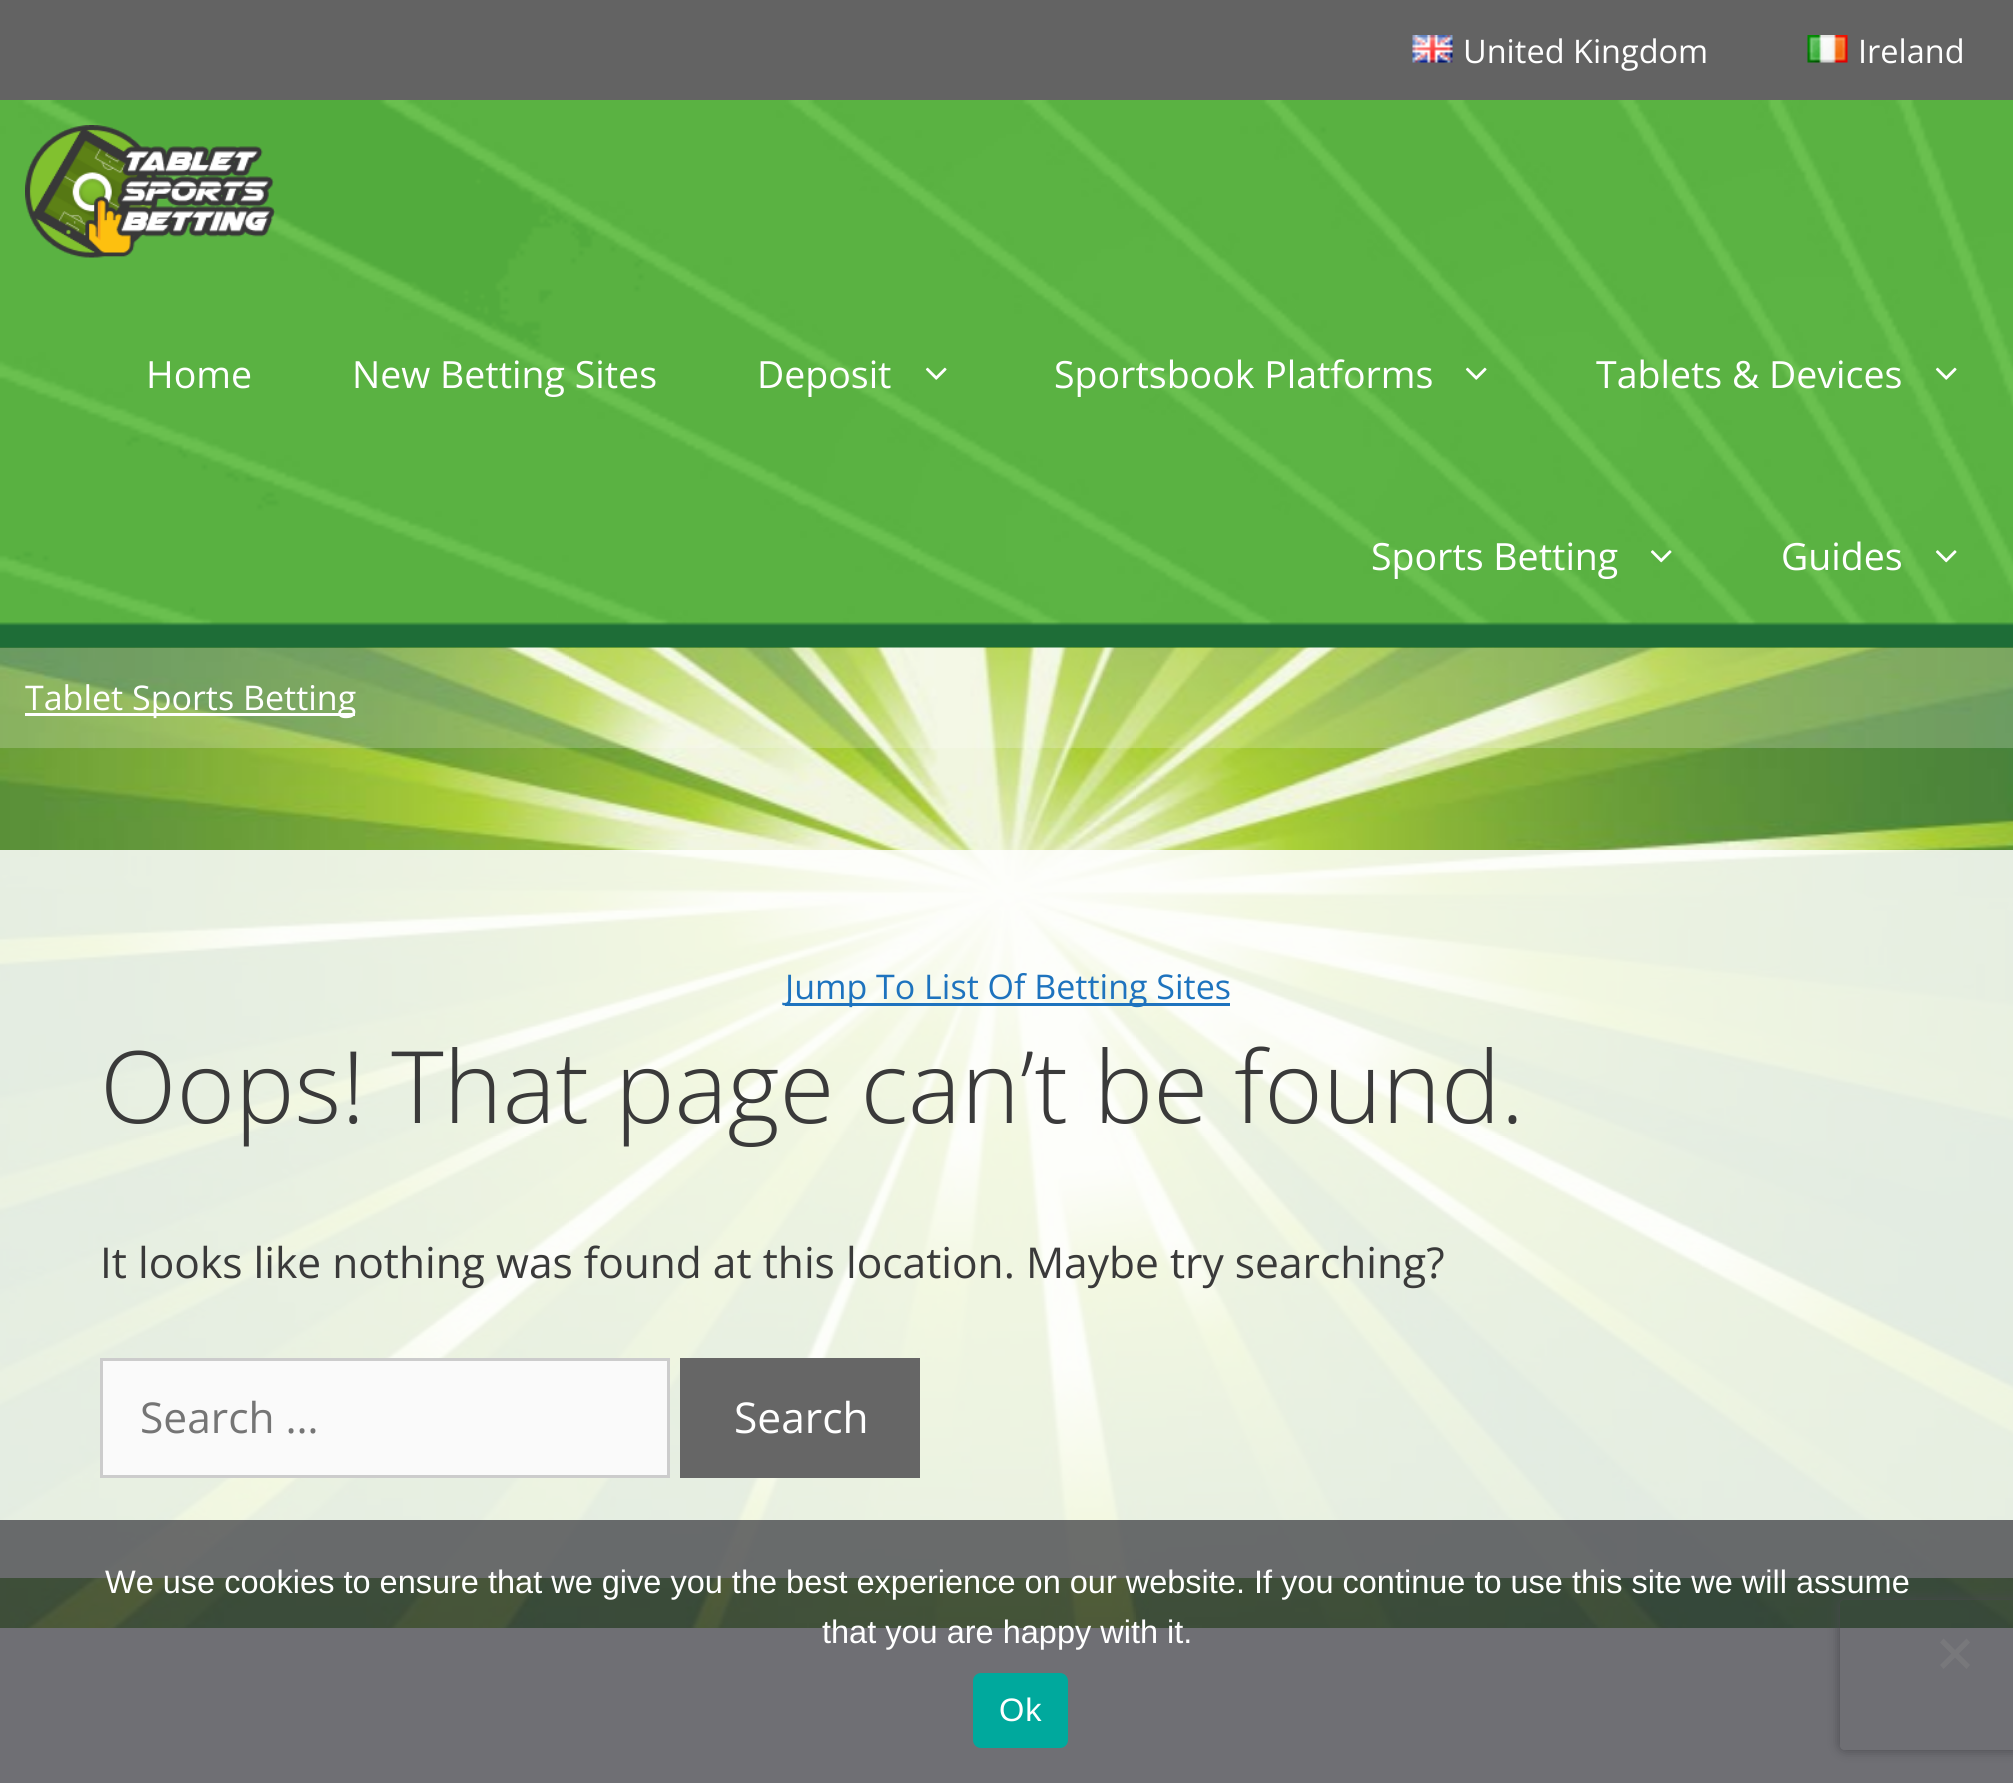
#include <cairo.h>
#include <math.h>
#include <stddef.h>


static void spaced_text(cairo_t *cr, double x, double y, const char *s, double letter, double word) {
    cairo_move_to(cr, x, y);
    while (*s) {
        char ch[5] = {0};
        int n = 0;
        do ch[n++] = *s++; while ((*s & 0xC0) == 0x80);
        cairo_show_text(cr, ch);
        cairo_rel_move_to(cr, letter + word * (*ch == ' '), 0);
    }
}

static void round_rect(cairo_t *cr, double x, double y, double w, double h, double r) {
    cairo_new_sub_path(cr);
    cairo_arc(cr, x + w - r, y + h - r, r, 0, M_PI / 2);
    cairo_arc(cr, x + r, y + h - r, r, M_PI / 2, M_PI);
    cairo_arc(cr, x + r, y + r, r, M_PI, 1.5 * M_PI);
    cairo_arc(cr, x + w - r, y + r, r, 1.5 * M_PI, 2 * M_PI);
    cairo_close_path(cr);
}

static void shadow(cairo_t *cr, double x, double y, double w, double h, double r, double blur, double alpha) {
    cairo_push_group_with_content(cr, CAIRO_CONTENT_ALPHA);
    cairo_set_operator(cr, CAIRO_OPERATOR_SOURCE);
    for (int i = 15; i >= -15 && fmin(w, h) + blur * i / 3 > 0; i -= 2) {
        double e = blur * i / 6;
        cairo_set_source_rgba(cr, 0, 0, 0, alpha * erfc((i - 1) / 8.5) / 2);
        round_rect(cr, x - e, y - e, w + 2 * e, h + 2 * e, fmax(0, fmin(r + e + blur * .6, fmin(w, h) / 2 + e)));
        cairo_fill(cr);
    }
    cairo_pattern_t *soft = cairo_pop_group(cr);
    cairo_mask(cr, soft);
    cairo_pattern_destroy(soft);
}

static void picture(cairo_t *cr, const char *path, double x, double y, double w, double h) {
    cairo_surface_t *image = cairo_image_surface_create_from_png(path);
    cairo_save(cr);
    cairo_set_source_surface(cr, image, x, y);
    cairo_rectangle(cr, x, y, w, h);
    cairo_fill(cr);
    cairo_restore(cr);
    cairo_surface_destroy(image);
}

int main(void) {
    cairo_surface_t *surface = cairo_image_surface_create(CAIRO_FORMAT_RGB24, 2013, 1783);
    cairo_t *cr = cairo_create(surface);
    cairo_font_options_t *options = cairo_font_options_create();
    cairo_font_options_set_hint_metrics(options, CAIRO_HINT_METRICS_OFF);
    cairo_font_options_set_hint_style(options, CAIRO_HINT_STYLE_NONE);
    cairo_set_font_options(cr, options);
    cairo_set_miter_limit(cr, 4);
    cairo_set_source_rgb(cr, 1, 1, 1);
    cairo_paint(cr);
    cairo_set_source_rgb(cr, 0.388, 0.388, 0.388);
    cairo_rectangle(cr, 0, 0, 2013, 100);
    cairo_fill(cr);
    picture(cr, "img1.png", 1412, 35, 41, 28);
    cairo_select_font_face(cr, "Open Sans", CAIRO_FONT_SLANT_NORMAL, CAIRO_FONT_WEIGHT_NORMAL);
    cairo_set_font_size(cr, 32.5);
    cairo_set_source_rgb(cr, 1, 1, 1);
    cairo_move_to(cr, 1463, 63);
    cairo_show_text(cr, "United Kingdom");
    picture(cr, "img2.png", 1807, 35, 41, 28);
    cairo_move_to(cr, 1858, 63);
    cairo_show_text(cr, "Ireland");
    picture(cr, "img8.png", 0, 647, 2013, 981);
    picture(cr, "img3.png", 0, 100, 2013, 548);
    picture(cr, "img4.png", 25, 125, 250, 133);
    cairo_set_font_size(cr, 37.5);
    cairo_move_to(cr, 146, 388);
    cairo_show_text(cr, "Home");
    cairo_move_to(cr, 352, 388);
    cairo_show_text(cr, "New Betting Sites");
    cairo_move_to(cr, 757, 388);
    cairo_show_text(cr, "Deposit");
    picture(cr, "img5.png", 925, 367, 22, 13);
    cairo_move_to(cr, 1054, 388);
    cairo_show_text(cr, "Sportsbook Platforms");
    picture(cr, "img5.png", 1465, 367, 22, 13);
    cairo_move_to(cr, 1596, 388);
    cairo_show_text(cr, "Tablets & Devices");
    picture(cr, "img5.png", 1935, 367, 22, 13);
    cairo_move_to(cr, 1371, 570);
    cairo_show_text(cr, "Sports Betting");
    picture(cr, "img6.png", 1650, 550, 22, 13);
    cairo_move_to(cr, 1781, 570);
    cairo_show_text(cr, "Guides");
    picture(cr, "img7.png", 1935, 550, 22, 13);
    cairo_set_source_rgba(cr, 1, 1, 1, 0.2);
    cairo_rectangle(cr, 0, 648, 2013, 100);
    cairo_fill(cr);
    cairo_set_source_rgb(cr, 1, 1, 1);
    cairo_rectangle(cr, 25, 713, 330, 3);
    cairo_fill(cr);
    cairo_set_font_size(cr, 34);
    cairo_move_to(cr, 25, 710);
    cairo_show_text(cr, "Tablet Sports Betting");
    cairo_set_source_rgba(cr, 1, 1, 1, 0.85);
    cairo_rectangle(cr, 0, 850, 2013, 728);
    cairo_fill(cr);
    cairo_set_source_rgb(cr, 0.118, 0.451, 0.745);
    cairo_rectangle(cr, 785, 1003, 445, 3);
    cairo_fill(cr);
    cairo_move_to(cr, 785, 999);
    cairo_show_text(cr, "Jump To List Of Betting Sites");
    cairo_select_font_face(cr, "Open Sans Light", CAIRO_FONT_SLANT_NORMAL, CAIRO_FONT_WEIGHT_NORMAL);
    cairo_set_font_size(cr, 100);
    cairo_set_source_rgb(cr, 0.227, 0.227, 0.227);
    cairo_move_to(cr, 100, 1123);
    cairo_show_text(cr, "Oops! That page can’t be found.");
    cairo_select_font_face(cr, "Open Sans", CAIRO_FONT_SLANT_NORMAL, CAIRO_FONT_WEIGHT_NORMAL);
    cairo_set_font_size(cr, 42.5);
    cairo_move_to(cr, 100, 1278);
    cairo_show_text(cr, "It looks like nothing was found at this location. Maybe try searching?");
    cairo_set_source_rgb(cr, 0.98, 0.98, 0.98);
    cairo_rectangle(cr, 101.5, 1359.5, 567, 117);
    cairo_fill_preserve(cr);
    cairo_set_source_rgb(cr, 0.8, 0.8, 0.8);
    cairo_set_line_width(cr, 3);
    cairo_stroke(cr);
    cairo_set_source_rgb(cr, 0.459, 0.459, 0.459);
    cairo_move_to(cr, 140, 1433);
    cairo_show_text(cr, "Search …");
    cairo_set_source_rgb(cr, 0.4, 0.4, 0.4);
    cairo_rectangle(cr, 680, 1358, 240, 120);
    cairo_fill(cr);
    cairo_set_source_rgb(cr, 1, 1, 1);
    cairo_move_to(cr, 734, 1433);
    cairo_show_text(cr, "Search");
    cairo_save(cr);
    cairo_set_fill_rule(cr, CAIRO_FILL_RULE_EVEN_ODD);
    cairo_new_path(cr);
    cairo_move_to(cr, 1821, 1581);
    cairo_line_to(cr, 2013, 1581);
    cairo_line_to(cr, 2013, 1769);
    cairo_line_to(cr, 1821, 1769);
    cairo_close_path(cr);
    cairo_move_to(cr, 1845, 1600);
    cairo_line_to(cr, 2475, 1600);
    cairo_curve_to(cr, 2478, 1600, 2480, 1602, 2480, 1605);
    cairo_line_to(cr, 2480, 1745);
    cairo_curve_to(cr, 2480, 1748, 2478, 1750, 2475, 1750);
    cairo_line_to(cr, 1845, 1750);
    cairo_curve_to(cr, 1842, 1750, 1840, 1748, 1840, 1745);
    cairo_line_to(cr, 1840, 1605);
    cairo_curve_to(cr, 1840, 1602, 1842, 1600, 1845, 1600);
    cairo_close_path(cr);
    cairo_clip(cr);
    cairo_set_source_rgb(cr, 0.502, 0.502, 0.502);
    shadow(cr, 1840, 1600, 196, 150, 5, 6, 1);
    cairo_restore(cr);
    cairo_set_source_rgba(cr, 0.196, 0.196, 0.227, 0.7);
    cairo_rectangle(cr, 0, 1520, 2013, 263);
    cairo_fill(cr);
    cairo_select_font_face(cr, "Liberation Sans", CAIRO_FONT_SLANT_NORMAL, CAIRO_FONT_WEIGHT_NORMAL);
    cairo_set_font_size(cr, 32.5);
    cairo_set_source_rgb(cr, 1, 1, 1);
    cairo_move_to(cr, 105, 1593);
    cairo_show_text(cr, "We use cookies to ensure that we give you the best experience on our website. If you continue to use this site we will assume");
    cairo_move_to(cr, 822, 1643);
    cairo_show_text(cr, "that you are happy with it.");
    cairo_set_source_rgb(cr, 0.471, 0.471, 0.482);
    cairo_new_path(cr);
    cairo_move_to(cr, 1966.5, 1638.5);
    cairo_line_to(cr, 1970, 1642.5);
    cairo_line_to(cr, 1943.5, 1669);
    cairo_line_to(cr, 1940, 1665);
    cairo_close_path(cr);
    cairo_fill(cr);
    cairo_new_path(cr);
    cairo_move_to(cr, 1940, 1642.5);
    cairo_line_to(cr, 1943.5, 1638.5);
    cairo_line_to(cr, 1970, 1665);
    cairo_line_to(cr, 1966.5, 1669);
    cairo_close_path(cr);
    cairo_fill(cr);
    cairo_set_source_rgb(cr, 0, 0.663, 0.616);
    round_rect(cr, 973, 1673, 95, 75, 8);
    cairo_fill(cr);
    cairo_set_source_rgb(cr, 1, 1, 1);
    spaced_text(cr, 999, 1721, "Ok", 1, 0);
    cairo_surface_write_to_png(surface, "page.png");
    cairo_font_options_destroy(options);
    cairo_destroy(cr);
    cairo_surface_destroy(surface);
    return 0;
}
